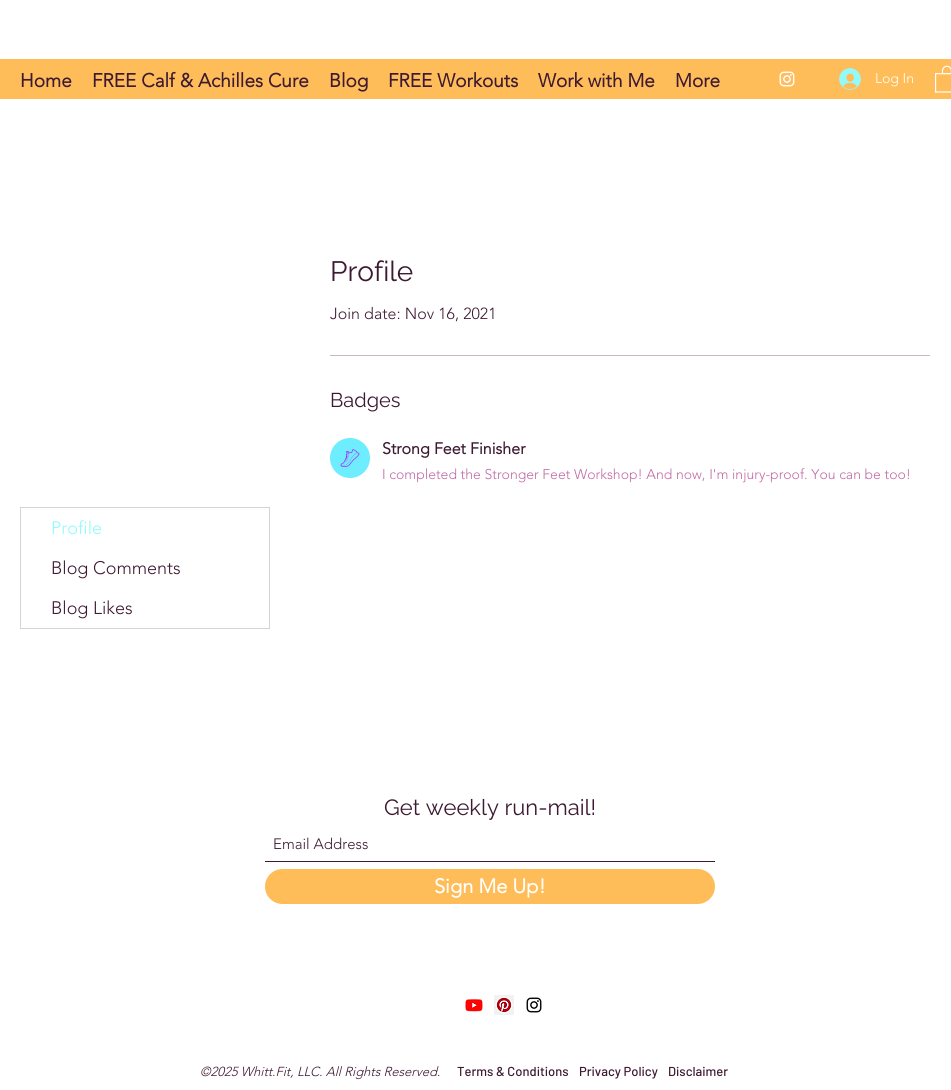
#include <cairo.h>
#include <math.h>
#include <stddef.h>


static void round_rect(cairo_t *cr, double x, double y, double w, double h, double r) {
    cairo_new_sub_path(cr);
    cairo_arc(cr, x + w - r, y + h - r, r, 0, M_PI / 2);
    cairo_arc(cr, x + r, y + h - r, r, M_PI / 2, M_PI);
    cairo_arc(cr, x + r, y + r, r, M_PI, 1.5 * M_PI);
    cairo_arc(cr, x + w - r, y + r, r, 1.5 * M_PI, 2 * M_PI);
    cairo_close_path(cr);
}

static void picture(cairo_t *cr, const char *path, double x, double y, double w, double h) {
    cairo_surface_t *image = cairo_image_surface_create_from_png(path);
    cairo_save(cr);
    cairo_set_source_surface(cr, image, x, y);
    cairo_rectangle(cr, x, y, w, h);
    cairo_fill(cr);
    cairo_restore(cr);
    cairo_surface_destroy(image);
}

int main(void) {
    cairo_surface_t *surface = cairo_image_surface_create(CAIRO_FORMAT_RGB24, 951, 1090);
    cairo_t *cr = cairo_create(surface);
    cairo_font_options_t *options = cairo_font_options_create();
    cairo_font_options_set_hint_metrics(options, CAIRO_HINT_METRICS_OFF);
    cairo_font_options_set_hint_style(options, CAIRO_HINT_STYLE_NONE);
    cairo_set_font_options(cr, options);
    cairo_set_miter_limit(cr, 4);
    cairo_set_source_rgb(cr, 1, 1, 1);
    cairo_paint(cr);
    cairo_set_source_rgb(cr, 1, 0.741, 0.349);
    cairo_rectangle(cr, 0, 59, 951, 40);
    cairo_fill(cr);
    cairo_select_font_face(cr, "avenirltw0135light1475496", CAIRO_FONT_SLANT_NORMAL, CAIRO_FONT_WEIGHT_BOLD);
    cairo_set_font_size(cr, 19);
    cairo_set_source_rgb(cr, 0.239, 0.098, 0.196);
    cairo_move_to(cr, 20, 87);
    cairo_show_text(cr, "Home");
    cairo_move_to(cr, 92, 87);
    cairo_show_text(cr, "FREE Calf & Achilles Cure");
    cairo_move_to(cr, 329, 87);
    cairo_show_text(cr, "Blog");
    cairo_move_to(cr, 388, 87);
    cairo_show_text(cr, "FREE Workouts");
    cairo_move_to(cr, 538, 87);
    cairo_show_text(cr, "Work with Me");
    cairo_move_to(cr, 675, 87);
    cairo_show_text(cr, "More");
    picture(cr, "img1.png", 779, 71, 16, 16);
    picture(cr, "img2.png", 839, 68, 22, 22);
    cairo_select_font_face(cr, "avenirltw0135light1475496 Light", CAIRO_FONT_SLANT_NORMAL, CAIRO_FONT_WEIGHT_NORMAL);
    cairo_set_font_size(cr, 14);
    cairo_set_source_rgb(cr, 1, 1, 1);
    cairo_move_to(cr, 875, 83);
    cairo_show_text(cr, "Log In");
    picture(cr, "img3.png", 935, 65, 16, 28);
    cairo_select_font_face(cr, "Raleway", CAIRO_FONT_SLANT_NORMAL, CAIRO_FONT_WEIGHT_NORMAL);
    cairo_set_font_size(cr, 28);
    cairo_set_source_rgb(cr, 0.239, 0.098, 0.196);
    cairo_move_to(cr, 330, 281);
    cairo_show_text(cr, "Profile");
    cairo_select_font_face(cr, "avenirltw0135light1475496 Light", CAIRO_FONT_SLANT_NORMAL, CAIRO_FONT_WEIGHT_NORMAL);
    cairo_set_font_size(cr, 16);
    cairo_move_to(cr, 330, 319);
    cairo_show_text(cr, "Join date: Nov 16, 2021");
    cairo_set_source_rgb(cr, 0.773, 0.729, 0.761);
    cairo_rectangle(cr, 330, 355, 600, 1);
    cairo_fill(cr);
    cairo_select_font_face(cr, "Raleway", CAIRO_FONT_SLANT_NORMAL, CAIRO_FONT_WEIGHT_NORMAL);
    cairo_set_font_size(cr, 20);
    cairo_set_source_rgb(cr, 0.239, 0.098, 0.196);
    cairo_move_to(cr, 330, 407);
    cairo_show_text(cr, "Badges");
    cairo_set_source_rgb(cr, 0.431, 0.929, 1);
    cairo_new_path(cr);
    cairo_arc(cr, 350, 458, 20, 0, 2 * M_PI);
    cairo_fill(cr);
    picture(cr, "img4.png", 340, 449, 20, 18);
    cairo_select_font_face(cr, "avenirltw0135light1475496", CAIRO_FONT_SLANT_NORMAL, CAIRO_FONT_WEIGHT_BOLD);
    cairo_set_font_size(cr, 16);
    cairo_set_source_rgb(cr, 0.239, 0.098, 0.196);
    cairo_move_to(cr, 382, 454);
    cairo_show_text(cr, "Strong Feet Finisher");
    cairo_select_font_face(cr, "avenirltw0135light1475496 Light", CAIRO_FONT_SLANT_NORMAL, CAIRO_FONT_WEIGHT_NORMAL);
    cairo_set_font_size(cr, 14);
    cairo_set_source_rgb(cr, 0.757, 0.412, 0.651);
    cairo_move_to(cr, 382, 479);
    cairo_show_text(cr, "I completed the Stronger Feet Workshop! And now, I'm injury-proof. You can be too!");
    cairo_rectangle(cr, 20.5, 507.5, 249, 121);
    cairo_set_source_rgb(cr, 0.847, 0.82, 0.839);
    cairo_set_line_width(cr, 1);
    cairo_stroke(cr);
    cairo_set_font_size(cr, 18);
    cairo_set_source_rgb(cr, 0.576, 0.98, 0.98);
    cairo_move_to(cr, 51, 534);
    cairo_show_text(cr, "Profile");
    cairo_set_source_rgb(cr, 0.239, 0.098, 0.196);
    cairo_move_to(cr, 51, 574);
    cairo_show_text(cr, "Blog Comments");
    cairo_move_to(cr, 51, 614);
    cairo_show_text(cr, "Blog Likes");
    cairo_select_font_face(cr, "Raleway", CAIRO_FONT_SLANT_NORMAL, CAIRO_FONT_WEIGHT_NORMAL);
    cairo_set_font_size(cr, 22);
    cairo_move_to(cr, 384, 815);
    cairo_show_text(cr, "Get weekly run-mail!");
    cairo_rectangle(cr, 265, 861, 450, 1);
    cairo_fill(cr);
    cairo_select_font_face(cr, "avenirltw0135light1475496 Light", CAIRO_FONT_SLANT_NORMAL, CAIRO_FONT_WEIGHT_NORMAL);
    cairo_set_font_size(cr, 15);
    cairo_move_to(cr, 273, 849);
    cairo_show_text(cr, "Email Address");
    cairo_set_source_rgb(cr, 1, 0.741, 0.349);
    round_rect(cr, 265, 869, 450, 35, 17.5);
    cairo_fill(cr);
    cairo_select_font_face(cr, "avenirltw0135light1475496", CAIRO_FONT_SLANT_NORMAL, CAIRO_FONT_WEIGHT_BOLD);
    cairo_set_font_size(cr, 20);
    cairo_set_source_rgb(cr, 1, 1, 1);
    cairo_move_to(cr, 434, 893);
    cairo_show_text(cr, "Sign Me Up!");
    picture(cr, "img5.png", 465, 999, 18, 13);
    picture(cr, "img6.png", 494, 995, 20, 20);
    picture(cr, "img7.png", 526, 997, 16, 16);
    cairo_select_font_face(cr, "avenirltw0135light1475496 Light", CAIRO_FONT_SLANT_ITALIC, CAIRO_FONT_WEIGHT_NORMAL);
    cairo_set_font_size(cr, 13);
    cairo_set_source_rgb(cr, 0.239, 0.098, 0.196);
    cairo_move_to(cr, 200, 1076);
    cairo_show_text(cr, "©2025 Whitt.Fit, LLC. All Rights Reserved");
    cairo_select_font_face(cr, "Barlow Medium", CAIRO_FONT_SLANT_NORMAL, CAIRO_FONT_WEIGHT_NORMAL);
    cairo_move_to(cr, 457, 1076);
    cairo_show_text(cr, "Terms & Conditions");
    cairo_move_to(cr, 579, 1076);
    cairo_show_text(cr, "Privacy Policy");
    cairo_move_to(cr, 668, 1076);
    cairo_show_text(cr, "Disclaimer");
    cairo_select_font_face(cr, "avenirltw0135light1475496 Light", CAIRO_FONT_SLANT_NORMAL, CAIRO_FONT_WEIGHT_NORMAL);
    cairo_move_to(cr, 437, 1076);
    cairo_show_text(cr, ".");
    cairo_surface_write_to_png(surface, "page.png");
    cairo_font_options_destroy(options);
    cairo_destroy(cr);
    cairo_surface_destroy(surface);
    return 0;
}
